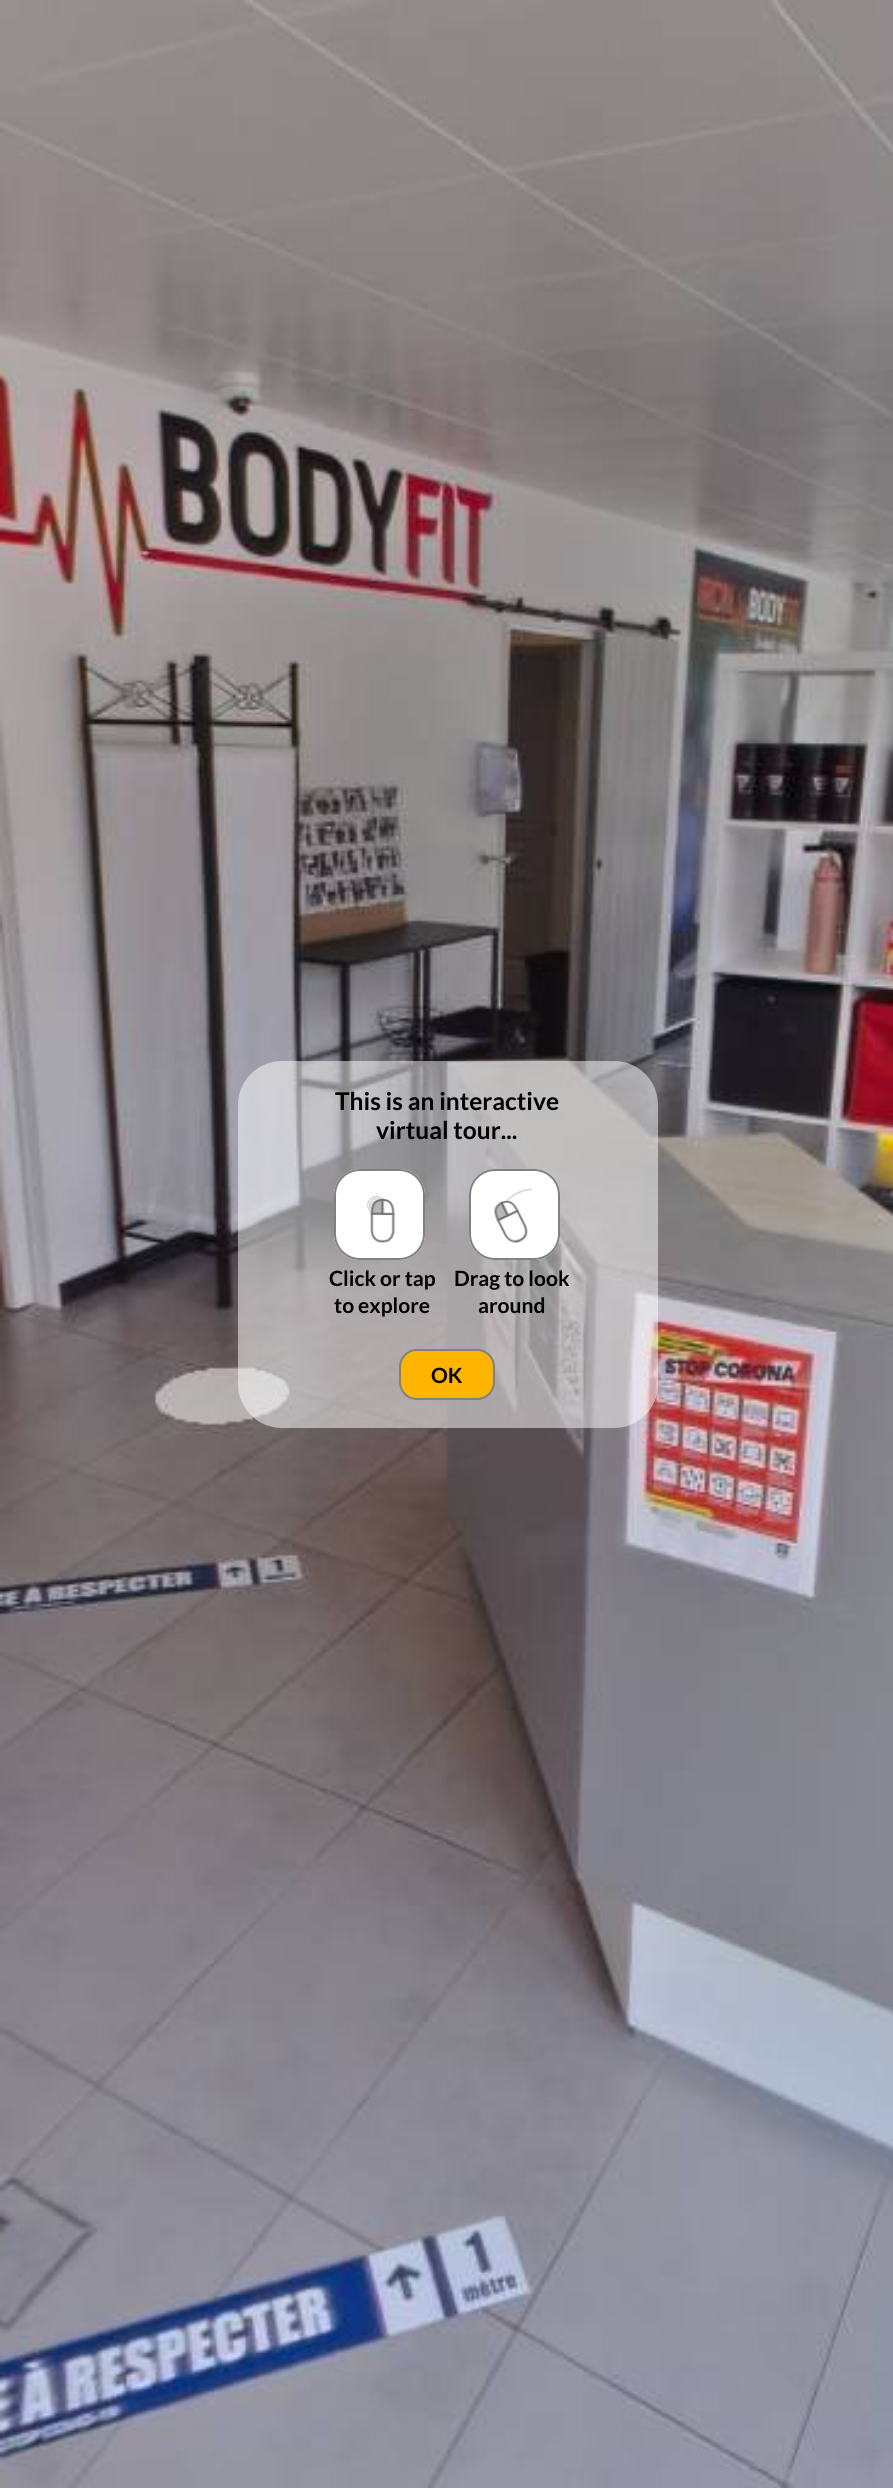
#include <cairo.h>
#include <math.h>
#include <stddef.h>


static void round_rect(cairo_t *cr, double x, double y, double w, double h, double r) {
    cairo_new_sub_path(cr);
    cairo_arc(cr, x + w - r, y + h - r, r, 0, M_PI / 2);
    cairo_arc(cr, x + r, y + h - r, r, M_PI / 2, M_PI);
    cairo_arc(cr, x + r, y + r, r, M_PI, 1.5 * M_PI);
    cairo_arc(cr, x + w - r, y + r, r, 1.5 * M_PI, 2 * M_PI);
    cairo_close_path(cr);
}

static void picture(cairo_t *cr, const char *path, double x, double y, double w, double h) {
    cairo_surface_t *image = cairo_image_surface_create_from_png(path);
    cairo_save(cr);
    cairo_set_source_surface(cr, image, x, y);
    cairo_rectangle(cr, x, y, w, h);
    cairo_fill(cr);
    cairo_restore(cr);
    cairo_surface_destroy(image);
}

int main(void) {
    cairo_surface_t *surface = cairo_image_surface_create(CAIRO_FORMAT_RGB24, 893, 2488);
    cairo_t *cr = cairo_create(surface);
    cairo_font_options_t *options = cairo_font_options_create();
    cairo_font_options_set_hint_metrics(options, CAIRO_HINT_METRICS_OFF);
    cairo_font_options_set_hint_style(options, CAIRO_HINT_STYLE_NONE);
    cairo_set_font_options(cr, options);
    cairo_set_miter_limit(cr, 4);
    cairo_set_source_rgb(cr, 1, 1, 1);
    cairo_paint(cr);
    picture(cr, "img1.png", 0, 0, 893, 2488);
    cairo_set_source_rgba(cr, 1, 1, 1, 0.5);
    round_rect(cr, 238, 1061, 420, 367, 44);
    cairo_fill(cr);
    cairo_select_font_face(cr, "Lato", CAIRO_FONT_SLANT_NORMAL, CAIRO_FONT_WEIGHT_BOLD);
    cairo_set_font_size(cr, 24.5);
    cairo_set_source_rgb(cr, 0, 0, 0);
    cairo_move_to(cr, 335, 1110);
    cairo_show_text(cr, "This is an interactive");
    cairo_move_to(cr, 376, 1139);
    cairo_show_text(cr, "virtual tour...");
    cairo_set_source_rgb(cr, 1, 1, 1);
    round_rect(cr, 334, 1169, 91, 91, 26);
    cairo_fill(cr);
    picture(cr, "img2.png", 367, 1196, 29, 47);
    round_rect(cr, 335, 1170, 89, 89, 25);
    cairo_set_source_rgb(cr, 0.502, 0.502, 0.502);
    cairo_stroke(cr);
    cairo_set_source_rgb(cr, 1, 1, 1);
    round_rect(cr, 469, 1169, 91, 91, 26);
    cairo_fill(cr);
    picture(cr, "img3.png", 494, 1188, 39, 56);
    round_rect(cr, 470, 1170, 89, 89, 25);
    cairo_set_source_rgb(cr, 0.502, 0.502, 0.502);
    cairo_stroke(cr);
    cairo_set_font_size(cr, 21);
    cairo_set_source_rgb(cr, 0, 0, 0);
    cairo_move_to(cr, 329, 1286);
    cairo_show_text(cr, "Click or tap");
    cairo_move_to(cr, 334, 1313);
    cairo_show_text(cr, "to explore");
    cairo_move_to(cr, 454, 1286);
    cairo_show_text(cr, "Drag to look");
    cairo_move_to(cr, 478, 1313);
    cairo_show_text(cr, "around");
    cairo_set_source_rgb(cr, 1, 0.71, 0);
    round_rect(cr, 400, 1350, 94, 49, 17);
    cairo_fill_preserve(cr);
    cairo_set_source_rgb(cr, 0.502, 0.502, 0.502);
    cairo_stroke(cr);
    cairo_set_source_rgb(cr, 0, 0, 0);
    cairo_move_to(cr, 431, 1383);
    cairo_show_text(cr, "OK");
    cairo_surface_write_to_png(surface, "page.png");
    cairo_font_options_destroy(options);
    cairo_destroy(cr);
    cairo_surface_destroy(surface);
    return 0;
}
